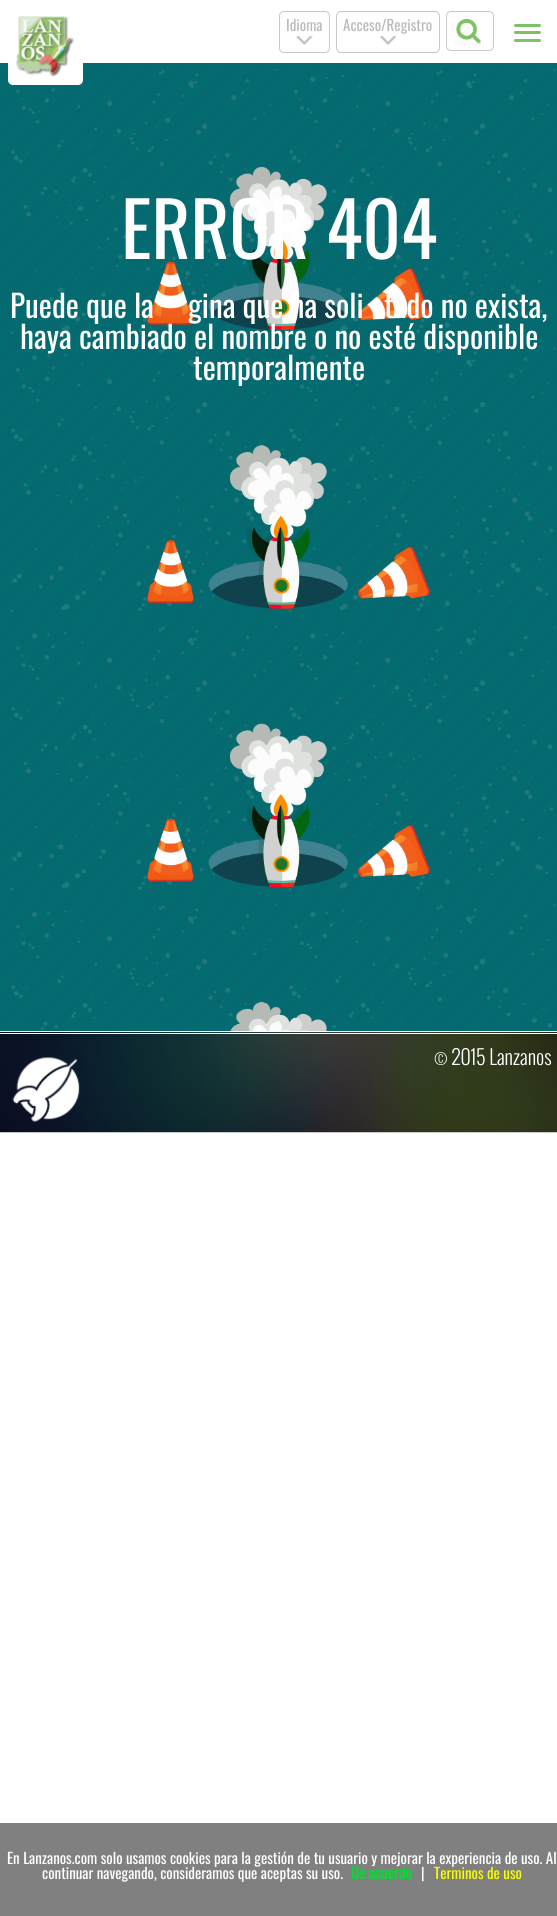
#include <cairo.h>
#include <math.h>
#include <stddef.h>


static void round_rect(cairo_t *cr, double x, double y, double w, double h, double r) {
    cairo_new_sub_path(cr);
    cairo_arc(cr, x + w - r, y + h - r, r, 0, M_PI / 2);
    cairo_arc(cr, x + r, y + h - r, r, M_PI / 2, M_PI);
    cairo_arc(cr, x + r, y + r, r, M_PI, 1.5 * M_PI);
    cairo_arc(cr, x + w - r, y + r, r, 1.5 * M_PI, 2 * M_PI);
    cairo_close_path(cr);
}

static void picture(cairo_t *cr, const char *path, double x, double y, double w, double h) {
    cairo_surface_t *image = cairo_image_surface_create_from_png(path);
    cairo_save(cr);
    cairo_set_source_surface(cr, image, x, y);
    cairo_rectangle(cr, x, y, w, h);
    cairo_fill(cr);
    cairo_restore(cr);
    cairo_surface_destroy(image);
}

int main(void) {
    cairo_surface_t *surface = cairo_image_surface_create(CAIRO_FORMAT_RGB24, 557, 1916);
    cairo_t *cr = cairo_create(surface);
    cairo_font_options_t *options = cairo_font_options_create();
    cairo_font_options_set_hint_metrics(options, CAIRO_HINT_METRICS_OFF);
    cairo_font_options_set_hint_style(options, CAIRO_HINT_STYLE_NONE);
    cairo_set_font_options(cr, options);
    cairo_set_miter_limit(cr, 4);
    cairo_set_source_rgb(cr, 1, 1, 1);
    cairo_paint(cr);
    picture(cr, "img5.png", 0, 63, 557, 968);
    cairo_set_source_rgb(cr, 1, 1, 1);
    round_rect(cr, 8, 8, 75, 77, 5);
    cairo_fill(cr);
    picture(cr, "img1.png", 15, 16, 60, 61);
    round_rect(cr, 279.5, 11.5, 50, 41, 4.5);
    cairo_set_source_rgb(cr, 0.788, 0.788, 0.788);
    cairo_set_line_width(cr, 1);
    cairo_stroke(cr);
    cairo_select_font_face(cr, "Oswald", CAIRO_FONT_SLANT_NORMAL, CAIRO_FONT_WEIGHT_NORMAL);
    cairo_set_font_size(cr, 15);
    cairo_set_source_rgb(cr, 0.733, 0.733, 0.733);
    cairo_move_to(cr, 286, 31);
    cairo_show_text(cr, "Idioma");
    picture(cr, "img2.png", 296, 36, 17, 9);
    round_rect(cr, 336.5, 11.5, 103, 41, 4.5);
    cairo_set_source_rgb(cr, 0.788, 0.788, 0.788);
    cairo_stroke(cr);
    cairo_set_source_rgb(cr, 0.733, 0.733, 0.733);
    cairo_move_to(cr, 343, 31);
    cairo_show_text(cr, "Acceso/Registro");
    picture(cr, "img3.png", 379, 36, 18, 9);
    round_rect(cr, 446.5, 11.5, 47, 39, 4.5);
    cairo_set_source_rgb(cr, 0.788, 0.788, 0.788);
    cairo_stroke(cr);
    picture(cr, "img4.png", 454, 18, 27, 27);
    cairo_set_source_rgb(cr, 0.494, 0.761, 0.4);
    round_rect(cr, 514, 24, 27, 3, 1.5);
    cairo_fill(cr);
    round_rect(cr, 514, 31, 27, 3, 1.5);
    cairo_fill(cr);
    round_rect(cr, 514, 39, 27, 3, 1.5);
    cairo_fill(cr);
    cairo_set_font_size(cr, 75);
    cairo_set_source_rgb(cr, 1, 1, 1);
    cairo_move_to(cr, 121, 259);
    cairo_show_text(cr, "ERROR 404");
    cairo_set_font_size(cr, 31.25);
    cairo_move_to(cr, 10, 318);
    cairo_show_text(cr, "Puede que la");
    cairo_move_to(cr, 188, 318);
    cairo_show_text(cr, "gina que ha soli");
    cairo_move_to(cr, 384, 318);
    cairo_show_text(cr, "tado no exista,");
    cairo_move_to(cr, 20, 349);
    cairo_show_text(cr, "haya cambiado el nombre o no esté disponible");
    cairo_move_to(cr, 193, 380);
    cairo_show_text(cr, "temporalmente");
    picture(cr, "img6.png", 0, 1032, 557, 101);
    cairo_rectangle(cr, 0, 1033, 557, 1);
    cairo_fill(cr);
    picture(cr, "img7.png", 12, 1057, 68, 65);
    cairo_select_font_face(cr, "Oswald Light", CAIRO_FONT_SLANT_NORMAL, CAIRO_FONT_WEIGHT_NORMAL);
    cairo_set_font_size(cr, 20);
    cairo_move_to(cr, 434, 1065);
    cairo_show_text(cr, "© 2015 Lanzanos");
    cairo_set_source_rgb(cr, 0.502, 0.502, 0.502);
    cairo_rectangle(cr, 0, 1823, 557, 93);
    cairo_fill(cr);
    cairo_select_font_face(cr, "Oswald", CAIRO_FONT_SLANT_NORMAL, CAIRO_FONT_WEIGHT_NORMAL);
    cairo_set_font_size(cr, 15);
    cairo_set_source_rgb(cr, 1, 1, 1);
    cairo_move_to(cr, 7, 1864);
    cairo_show_text(cr, "En Lanzanos.com solo usamos cookies para la gestión de tu usuario y mejorar la experiencia de uso. Al");
    cairo_move_to(cr, 42, 1879);
    cairo_show_text(cr, "continuar navegando, consideramos que aceptas su uso.");
    cairo_select_font_face(cr, "Oswald", CAIRO_FONT_SLANT_NORMAL, CAIRO_FONT_WEIGHT_BOLD);
    cairo_set_source_rgb(cr, 0, 0.867, 0.18);
    cairo_move_to(cr, 351, 1879);
    cairo_show_text(cr, "De acuerdo");
    cairo_select_font_face(cr, "Oswald", CAIRO_FONT_SLANT_NORMAL, CAIRO_FONT_WEIGHT_NORMAL);
    cairo_set_source_rgb(cr, 1, 1, 1);
    cairo_move_to(cr, 421, 1879);
    cairo_show_text(cr, "|");
    cairo_set_source_rgb(cr, 0.98, 1, 0);
    cairo_move_to(cr, 434, 1879);
    cairo_show_text(cr, "Terminos de uso");
    cairo_surface_write_to_png(surface, "page.png");
    cairo_font_options_destroy(options);
    cairo_destroy(cr);
    cairo_surface_destroy(surface);
    return 0;
}
